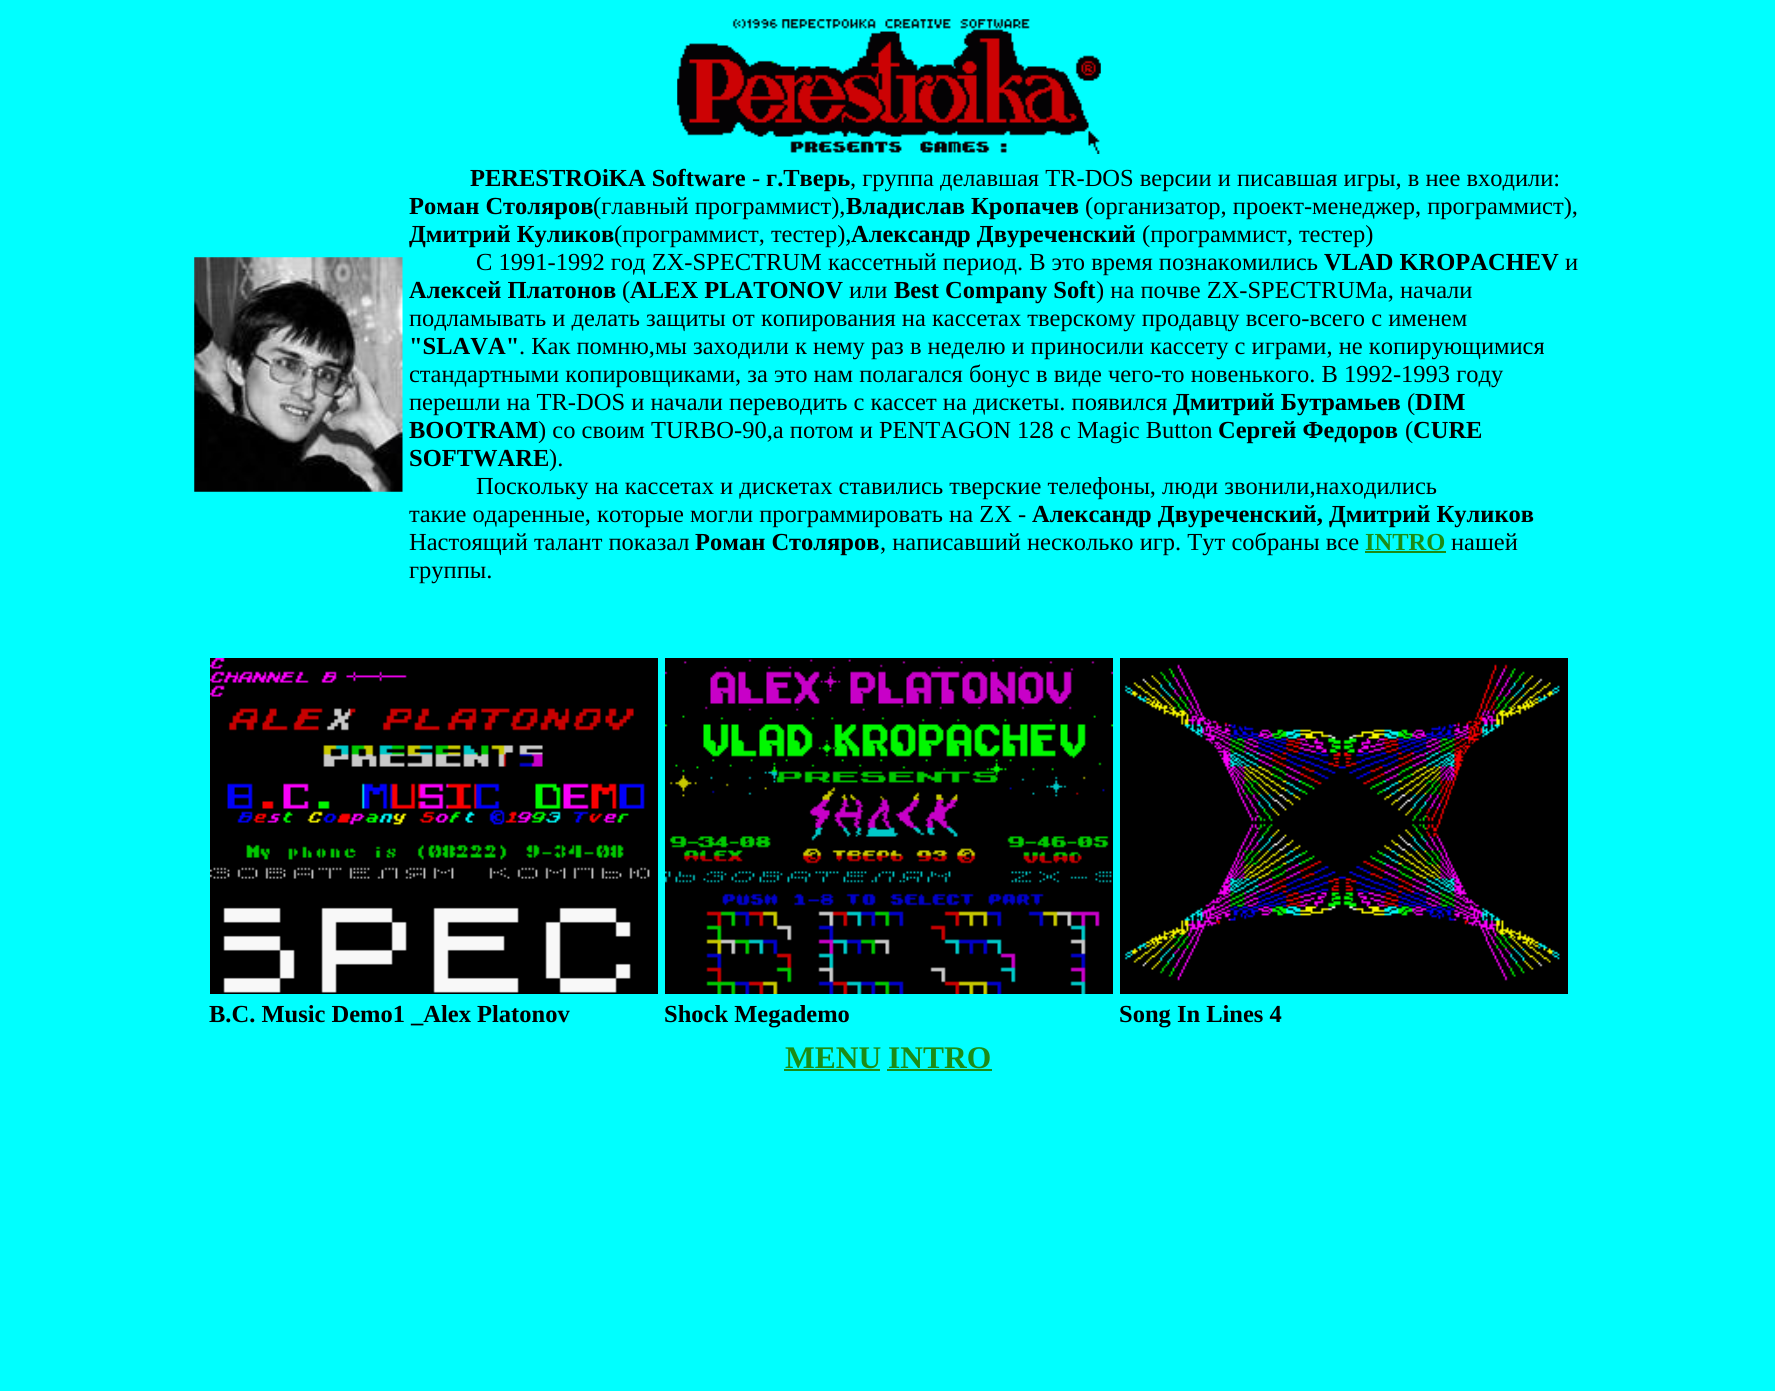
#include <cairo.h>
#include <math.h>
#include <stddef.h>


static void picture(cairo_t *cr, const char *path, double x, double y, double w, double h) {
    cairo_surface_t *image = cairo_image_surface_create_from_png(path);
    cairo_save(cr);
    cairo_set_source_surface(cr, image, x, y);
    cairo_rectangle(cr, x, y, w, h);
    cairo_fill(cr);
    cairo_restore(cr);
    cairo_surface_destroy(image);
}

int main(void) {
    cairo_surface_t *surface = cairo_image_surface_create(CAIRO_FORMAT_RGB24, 1775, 1391);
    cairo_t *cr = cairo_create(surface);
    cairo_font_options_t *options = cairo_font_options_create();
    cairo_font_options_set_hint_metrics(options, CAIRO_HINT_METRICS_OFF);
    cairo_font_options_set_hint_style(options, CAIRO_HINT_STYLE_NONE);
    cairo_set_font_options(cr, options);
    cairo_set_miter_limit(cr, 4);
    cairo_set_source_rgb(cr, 0, 1, 1);
    cairo_paint(cr);
    picture(cr, "img1.png", 677, 19, 424, 135);
    picture(cr, "img2.png", 194, 257, 209, 235);
    cairo_select_font_face(cr, "Liberation Serif", CAIRO_FONT_SLANT_NORMAL, CAIRO_FONT_WEIGHT_BOLD);
    cairo_set_font_size(cr, 24.5);
    cairo_set_source_rgb(cr, 0, 0, 0);
    cairo_move_to(cr, 470, 186);
    cairo_show_text(cr, "PERESTROiKA Software");
    cairo_select_font_face(cr, "Liberation Serif", CAIRO_FONT_SLANT_NORMAL, CAIRO_FONT_WEIGHT_NORMAL);
    cairo_move_to(cr, 752, 186);
    cairo_show_text(cr, "-");
    cairo_select_font_face(cr, "Liberation Serif", CAIRO_FONT_SLANT_NORMAL, CAIRO_FONT_WEIGHT_BOLD);
    cairo_move_to(cr, 766, 186);
    cairo_show_text(cr, "г.Тверь");
    cairo_select_font_face(cr, "Liberation Serif", CAIRO_FONT_SLANT_NORMAL, CAIRO_FONT_WEIGHT_NORMAL);
    cairo_move_to(cr, 850, 186);
    cairo_show_text(cr, ", группа делавшая TR-DOS версии и писавшая игры, в нее входили:");
    cairo_select_font_face(cr, "Liberation Serif", CAIRO_FONT_SLANT_NORMAL, CAIRO_FONT_WEIGHT_BOLD);
    cairo_move_to(cr, 409, 214);
    cairo_show_text(cr, "Роман Столяров");
    cairo_select_font_face(cr, "Liberation Serif", CAIRO_FONT_SLANT_NORMAL, CAIRO_FONT_WEIGHT_NORMAL);
    cairo_move_to(cr, 593, 214);
    cairo_show_text(cr, "(главный программист),");
    cairo_select_font_face(cr, "Liberation Serif", CAIRO_FONT_SLANT_NORMAL, CAIRO_FONT_WEIGHT_BOLD);
    cairo_move_to(cr, 846, 214);
    cairo_show_text(cr, "Владислав Кропачев");
    cairo_select_font_face(cr, "Liberation Serif", CAIRO_FONT_SLANT_NORMAL, CAIRO_FONT_WEIGHT_NORMAL);
    cairo_move_to(cr, 1085, 214);
    cairo_show_text(cr, "(организатор, проект-менеджер, программист),");
    cairo_select_font_face(cr, "Liberation Serif", CAIRO_FONT_SLANT_NORMAL, CAIRO_FONT_WEIGHT_BOLD);
    cairo_move_to(cr, 409, 242);
    cairo_show_text(cr, "Дмитрий Куликов");
    cairo_select_font_face(cr, "Liberation Serif", CAIRO_FONT_SLANT_NORMAL, CAIRO_FONT_WEIGHT_NORMAL);
    cairo_move_to(cr, 614, 242);
    cairo_show_text(cr, "(программист, тестер),");
    cairo_select_font_face(cr, "Liberation Serif", CAIRO_FONT_SLANT_NORMAL, CAIRO_FONT_WEIGHT_BOLD);
    cairo_move_to(cr, 851, 242);
    cairo_show_text(cr, "Александр Двуреченский");
    cairo_select_font_face(cr, "Liberation Serif", CAIRO_FONT_SLANT_NORMAL, CAIRO_FONT_WEIGHT_NORMAL);
    cairo_move_to(cr, 1142, 242);
    cairo_show_text(cr, "(программист, тестер)");
    cairo_move_to(cr, 476, 270);
    cairo_show_text(cr, "C 1991-1992 год ZX-SPECTRUM кассетный период. В это время познакомились");
    cairo_select_font_face(cr, "Liberation Serif", CAIRO_FONT_SLANT_NORMAL, CAIRO_FONT_WEIGHT_BOLD);
    cairo_move_to(cr, 1324, 270);
    cairo_show_text(cr, "VLAD KROPACHEV");
    cairo_select_font_face(cr, "Liberation Serif", CAIRO_FONT_SLANT_NORMAL, CAIRO_FONT_WEIGHT_NORMAL);
    cairo_move_to(cr, 1565, 270);
    cairo_show_text(cr, "и");
    cairo_select_font_face(cr, "Liberation Serif", CAIRO_FONT_SLANT_NORMAL, CAIRO_FONT_WEIGHT_BOLD);
    cairo_move_to(cr, 409, 298);
    cairo_show_text(cr, "Алексей Платонов");
    cairo_select_font_face(cr, "Liberation Serif", CAIRO_FONT_SLANT_NORMAL, CAIRO_FONT_WEIGHT_NORMAL);
    cairo_move_to(cr, 622, 298);
    cairo_show_text(cr, "(");
    cairo_select_font_face(cr, "Liberation Serif", CAIRO_FONT_SLANT_NORMAL, CAIRO_FONT_WEIGHT_BOLD);
    cairo_move_to(cr, 630, 298);
    cairo_show_text(cr, "ALEX PLATONOV");
    cairo_select_font_face(cr, "Liberation Serif", CAIRO_FONT_SLANT_NORMAL, CAIRO_FONT_WEIGHT_NORMAL);
    cairo_move_to(cr, 849, 298);
    cairo_show_text(cr, "или");
    cairo_select_font_face(cr, "Liberation Serif", CAIRO_FONT_SLANT_NORMAL, CAIRO_FONT_WEIGHT_BOLD);
    cairo_move_to(cr, 894, 298);
    cairo_show_text(cr, "Best Company Soft");
    cairo_select_font_face(cr, "Liberation Serif", CAIRO_FONT_SLANT_NORMAL, CAIRO_FONT_WEIGHT_NORMAL);
    cairo_move_to(cr, 1096, 298);
    cairo_show_text(cr, ") на почве ZX-SPECTRUMa, начали");
    cairo_move_to(cr, 409, 326);
    cairo_show_text(cr, "подламывать и делать защиты от копирования на кассетах тверскому продавцу всего-всего с именем");
    cairo_select_font_face(cr, "Liberation Serif", CAIRO_FONT_SLANT_NORMAL, CAIRO_FONT_WEIGHT_BOLD);
    cairo_move_to(cr, 409, 354);
    cairo_show_text(cr, "\"SLAVA\"");
    cairo_select_font_face(cr, "Liberation Serif", CAIRO_FONT_SLANT_NORMAL, CAIRO_FONT_WEIGHT_NORMAL);
    cairo_move_to(cr, 519, 354);
    cairo_show_text(cr, ". Как помню,мы заходили к нему раз в неделю и приносили кассету с играми, не копирующимися");
    cairo_move_to(cr, 409, 382);
    cairo_show_text(cr, "стандартными копировщиками, за это нам полагался бонус в виде чего-то новенького. В 1992-1993 году");
    cairo_move_to(cr, 409, 410);
    cairo_show_text(cr, "перешли на TR-DOS и начали переводить с кассет на дискеты. появился");
    cairo_select_font_face(cr, "Liberation Serif", CAIRO_FONT_SLANT_NORMAL, CAIRO_FONT_WEIGHT_BOLD);
    cairo_move_to(cr, 1173, 410);
    cairo_show_text(cr, "Дмитрий Бутрамьев");
    cairo_select_font_face(cr, "Liberation Serif", CAIRO_FONT_SLANT_NORMAL, CAIRO_FONT_WEIGHT_NORMAL);
    cairo_move_to(cr, 1407, 410);
    cairo_show_text(cr, "(");
    cairo_select_font_face(cr, "Liberation Serif", CAIRO_FONT_SLANT_NORMAL, CAIRO_FONT_WEIGHT_BOLD);
    cairo_move_to(cr, 1415, 410);
    cairo_show_text(cr, "DIM");
    cairo_move_to(cr, 409, 438);
    cairo_show_text(cr, "BOOTRAM");
    cairo_select_font_face(cr, "Liberation Serif", CAIRO_FONT_SLANT_NORMAL, CAIRO_FONT_WEIGHT_NORMAL);
    cairo_move_to(cr, 538, 438);
    cairo_show_text(cr, ") со своим TURBO-90,a потом и PENTAGON 128 с Magic Button");
    cairo_select_font_face(cr, "Liberation Serif", CAIRO_FONT_SLANT_NORMAL, CAIRO_FONT_WEIGHT_BOLD);
    cairo_move_to(cr, 1218, 438);
    cairo_show_text(cr, "Сергей Федоров");
    cairo_select_font_face(cr, "Liberation Serif", CAIRO_FONT_SLANT_NORMAL, CAIRO_FONT_WEIGHT_NORMAL);
    cairo_move_to(cr, 1405, 438);
    cairo_show_text(cr, "(");
    cairo_select_font_face(cr, "Liberation Serif", CAIRO_FONT_SLANT_NORMAL, CAIRO_FONT_WEIGHT_BOLD);
    cairo_move_to(cr, 1413, 438);
    cairo_show_text(cr, "CURE");
    cairo_move_to(cr, 409, 466);
    cairo_show_text(cr, "SOFTWARE");
    cairo_select_font_face(cr, "Liberation Serif", CAIRO_FONT_SLANT_NORMAL, CAIRO_FONT_WEIGHT_NORMAL);
    cairo_move_to(cr, 549, 466);
    cairo_show_text(cr, ").");
    cairo_move_to(cr, 476, 494);
    cairo_show_text(cr, "Поскольку на кассетах и дискетах ставились тверские телефоны, люди звонили,находились");
    cairo_move_to(cr, 409, 522);
    cairo_show_text(cr, "такие одаренные, которые могли программировать на ZX -");
    cairo_select_font_face(cr, "Liberation Serif", CAIRO_FONT_SLANT_NORMAL, CAIRO_FONT_WEIGHT_BOLD);
    cairo_move_to(cr, 1032, 522);
    cairo_show_text(cr, "Александр Двуреченский, Дмитрий Куликов");
    cairo_select_font_face(cr, "Liberation Serif", CAIRO_FONT_SLANT_NORMAL, CAIRO_FONT_WEIGHT_NORMAL);
    cairo_move_to(cr, 409, 550);
    cairo_show_text(cr, "Настоящий талант показал");
    cairo_select_font_face(cr, "Liberation Serif", CAIRO_FONT_SLANT_NORMAL, CAIRO_FONT_WEIGHT_BOLD);
    cairo_move_to(cr, 695, 550);
    cairo_show_text(cr, "Роман Столяров");
    cairo_select_font_face(cr, "Liberation Serif", CAIRO_FONT_SLANT_NORMAL, CAIRO_FONT_WEIGHT_NORMAL);
    cairo_move_to(cr, 880, 550);
    cairo_show_text(cr, ", написавший несколько игр. Тут собраны все");
    cairo_select_font_face(cr, "Liberation Serif", CAIRO_FONT_SLANT_NORMAL, CAIRO_FONT_WEIGHT_BOLD);
    cairo_set_source_rgb(cr, 0.11, 0.549, 0.086);
    cairo_move_to(cr, 1365, 550);
    cairo_show_text(cr, "INTRO");
    cairo_rectangle(cr, 1365, 551, 81, 2);
    cairo_fill(cr);
    cairo_select_font_face(cr, "Liberation Serif", CAIRO_FONT_SLANT_NORMAL, CAIRO_FONT_WEIGHT_NORMAL);
    cairo_set_source_rgb(cr, 0, 0, 0);
    cairo_move_to(cr, 1451, 550);
    cairo_show_text(cr, "нашей");
    cairo_move_to(cr, 409, 578);
    cairo_show_text(cr, "группы.");
    picture(cr, "img3.png", 210, 658, 448, 336);
    picture(cr, "img4.png", 665, 658, 448, 336);
    picture(cr, "img5.png", 1120, 658, 448, 336);
    cairo_select_font_face(cr, "Liberation Serif", CAIRO_FONT_SLANT_NORMAL, CAIRO_FONT_WEIGHT_BOLD);
    cairo_move_to(cr, 209, 1022);
    cairo_show_text(cr, "B.C. Music Demo1 _Alex Platonov");
    cairo_move_to(cr, 664, 1022);
    cairo_show_text(cr, "Shock Megademo");
    cairo_move_to(cr, 1119, 1022);
    cairo_show_text(cr, "Song In Lines 4");
    cairo_set_font_size(cr, 31.5);
    cairo_set_source_rgb(cr, 0.11, 0.549, 0.086);
    cairo_move_to(cr, 785, 1068);
    cairo_show_text(cr, "MENU");
    cairo_rectangle(cr, 784, 1069, 96, 2);
    cairo_fill(cr);
    cairo_move_to(cr, 888, 1068);
    cairo_show_text(cr, "INTRO");
    cairo_rectangle(cr, 887, 1069, 105, 2);
    cairo_fill(cr);
    cairo_surface_write_to_png(surface, "page.png");
    cairo_font_options_destroy(options);
    cairo_destroy(cr);
    cairo_surface_destroy(surface);
    return 0;
}
